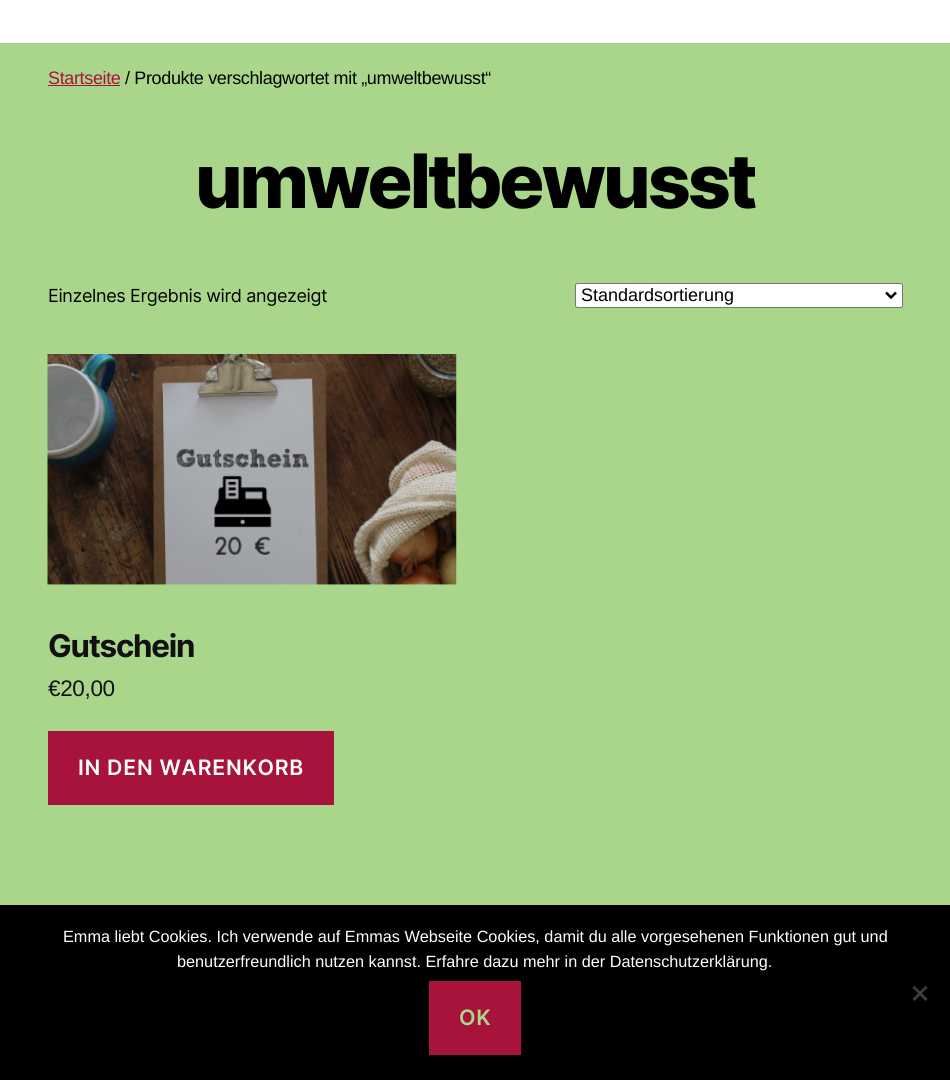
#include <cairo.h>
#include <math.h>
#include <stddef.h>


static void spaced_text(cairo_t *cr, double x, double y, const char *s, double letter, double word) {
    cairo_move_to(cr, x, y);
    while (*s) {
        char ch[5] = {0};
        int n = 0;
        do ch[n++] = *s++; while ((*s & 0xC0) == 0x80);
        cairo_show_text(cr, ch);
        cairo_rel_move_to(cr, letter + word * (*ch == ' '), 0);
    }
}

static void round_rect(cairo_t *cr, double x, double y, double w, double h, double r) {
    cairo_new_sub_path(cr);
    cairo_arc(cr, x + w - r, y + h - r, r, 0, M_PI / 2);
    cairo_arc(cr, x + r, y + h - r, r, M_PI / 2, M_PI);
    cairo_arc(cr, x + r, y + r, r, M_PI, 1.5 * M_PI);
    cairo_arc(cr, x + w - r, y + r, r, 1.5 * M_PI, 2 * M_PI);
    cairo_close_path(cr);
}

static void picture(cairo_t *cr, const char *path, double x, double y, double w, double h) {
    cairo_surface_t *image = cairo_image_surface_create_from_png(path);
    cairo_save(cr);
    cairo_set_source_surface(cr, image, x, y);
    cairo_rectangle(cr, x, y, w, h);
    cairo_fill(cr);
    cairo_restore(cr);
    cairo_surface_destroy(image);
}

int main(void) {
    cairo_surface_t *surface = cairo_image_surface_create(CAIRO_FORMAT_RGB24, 950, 1080);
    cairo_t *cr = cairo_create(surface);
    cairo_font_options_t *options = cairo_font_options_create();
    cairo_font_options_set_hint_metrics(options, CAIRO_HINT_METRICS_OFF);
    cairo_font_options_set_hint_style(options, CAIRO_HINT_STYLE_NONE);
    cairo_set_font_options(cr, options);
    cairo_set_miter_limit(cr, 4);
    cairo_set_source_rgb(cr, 0.667, 0.839, 0.545);
    cairo_paint(cr);
    cairo_set_source_rgb(cr, 1, 1, 1);
    cairo_rectangle(cr, 0, 0, 950, 43);
    cairo_fill(cr);
    cairo_select_font_face(cr, "Liberation Sans", CAIRO_FONT_SLANT_NORMAL, CAIRO_FONT_WEIGHT_NORMAL);
    cairo_set_font_size(cr, 18);
    cairo_set_source_rgb(cr, 0.659, 0.075, 0.231);
    spaced_text(cr, 48, 84, "Startseite", -0.35, 0);
    cairo_rectangle(cr, 48, 85, 72, 1);
    cairo_fill(cr);
    cairo_set_source_rgb(cr, 0, 0, 0);
    spaced_text(cr, 125, 84, "/ Produkte verschlagwortet mit „umweltbewusst“", -0.35, 0);
    cairo_select_font_face(cr, "Inter ExtraBold", CAIRO_FONT_SLANT_NORMAL, CAIRO_FONT_WEIGHT_NORMAL);
    cairo_set_font_size(cr, 75);
    spaced_text(cr, 195, 208, "umweltbewusst", -3.1, 0);
    cairo_select_font_face(cr, "Inter", CAIRO_FONT_SLANT_NORMAL, CAIRO_FONT_WEIGHT_NORMAL);
    cairo_set_font_size(cr, 18);
    spaced_text(cr, 48, 302, "Einzelnes Ergebnis wird angezeigt", -0.35, 0);
    cairo_set_source_rgb(cr, 1, 1, 1);
    round_rect(cr, 575.5, 283.5, 327, 24, 2);
    cairo_fill_preserve(cr);
    cairo_set_source_rgb(cr, 0.463, 0.463, 0.463);
    cairo_set_line_width(cr, 1);
    cairo_stroke(cr);
    cairo_new_path(cr);
    cairo_move_to(cr, 886, 292.5);
    cairo_line_to(cr, 891, 297.5);
    cairo_line_to(cr, 896, 292.5);
    cairo_set_source_rgb(cr, 0, 0, 0);
    cairo_set_line_width(cr, 2.5);
    cairo_stroke(cr);
    cairo_select_font_face(cr, "Liberation Sans", CAIRO_FONT_SLANT_NORMAL, CAIRO_FONT_WEIGHT_NORMAL);
    cairo_move_to(cr, 581, 301);
    cairo_show_text(cr, "Standardsortierung");
    picture(cr, "img1.png", 47, 354, 410, 231);
    cairo_select_font_face(cr, "Inter", CAIRO_FONT_SLANT_NORMAL, CAIRO_FONT_WEIGHT_BOLD);
    cairo_set_font_size(cr, 31.25);
    cairo_set_source_rgb(cr, 0.067, 0.067, 0.067);
    spaced_text(cr, 48, 657, "Gutschein", -1.25, 0);
    cairo_select_font_face(cr, "Liberation Sans", CAIRO_FONT_SLANT_NORMAL, CAIRO_FONT_WEIGHT_NORMAL);
    cairo_set_font_size(cr, 22.5);
    spaced_text(cr, 48, 696, "€20,00", -0.35, 0);
    cairo_set_source_rgb(cr, 0.659, 0.075, 0.231);
    cairo_rectangle(cr, 48, 731, 286, 74);
    cairo_fill(cr);
    cairo_select_font_face(cr, "Inter SemiBold", CAIRO_FONT_SLANT_NORMAL, CAIRO_FONT_WEIGHT_NORMAL);
    cairo_set_font_size(cr, 21.25);
    cairo_set_source_rgb(cr, 1, 1, 1);
    spaced_text(cr, 78, 775, "IN DEN WARENKORB", 0.75, 0);
    cairo_set_source_rgb(cr, 0, 0, 0);
    cairo_rectangle(cr, 0, 905, 950, 175);
    cairo_fill(cr);
    cairo_select_font_face(cr, "Liberation Sans", CAIRO_FONT_SLANT_NORMAL, CAIRO_FONT_WEIGHT_NORMAL);
    cairo_set_font_size(cr, 16.25);
    cairo_set_source_rgb(cr, 1, 1, 1);
    cairo_move_to(cr, 63, 942);
    cairo_show_text(cr, "Emma liebt Cookies. Ich verwende auf Emmas Webseite Cookies, damit du alle vorgesehenen Funktionen gut und");
    cairo_move_to(cr, 177, 967);
    cairo_show_text(cr, "benutzerfreundlich nutzen kannst. Erfahre dazu mehr in der Datenschutzerklärung.");
    cairo_set_source_rgb(cr, 0.251, 0.251, 0.251);
    cairo_new_path(cr);
    cairo_move_to(cr, 925.5, 986);
    cairo_line_to(cr, 927.5, 987.5);
    cairo_line_to(cr, 914.5, 1001);
    cairo_line_to(cr, 912.5, 999);
    cairo_close_path(cr);
    cairo_fill(cr);
    cairo_new_path(cr);
    cairo_move_to(cr, 912.5, 987.5);
    cairo_line_to(cr, 914.5, 986);
    cairo_line_to(cr, 927.5, 999);
    cairo_line_to(cr, 925.5, 1001);
    cairo_close_path(cr);
    cairo_fill(cr);
    cairo_set_source_rgb(cr, 0.659, 0.075, 0.231);
    cairo_rectangle(cr, 429, 981, 92, 74);
    cairo_fill(cr);
    cairo_select_font_face(cr, "Inter SemiBold", CAIRO_FONT_SLANT_NORMAL, CAIRO_FONT_WEIGHT_NORMAL);
    cairo_set_font_size(cr, 21.25);
    cairo_set_source_rgb(cr, 0.667, 0.839, 0.545);
    spaced_text(cr, 459, 1025, "OK", 0.75, 0);
    cairo_surface_write_to_png(surface, "page.png");
    cairo_font_options_destroy(options);
    cairo_destroy(cr);
    cairo_surface_destroy(surface);
    return 0;
}
